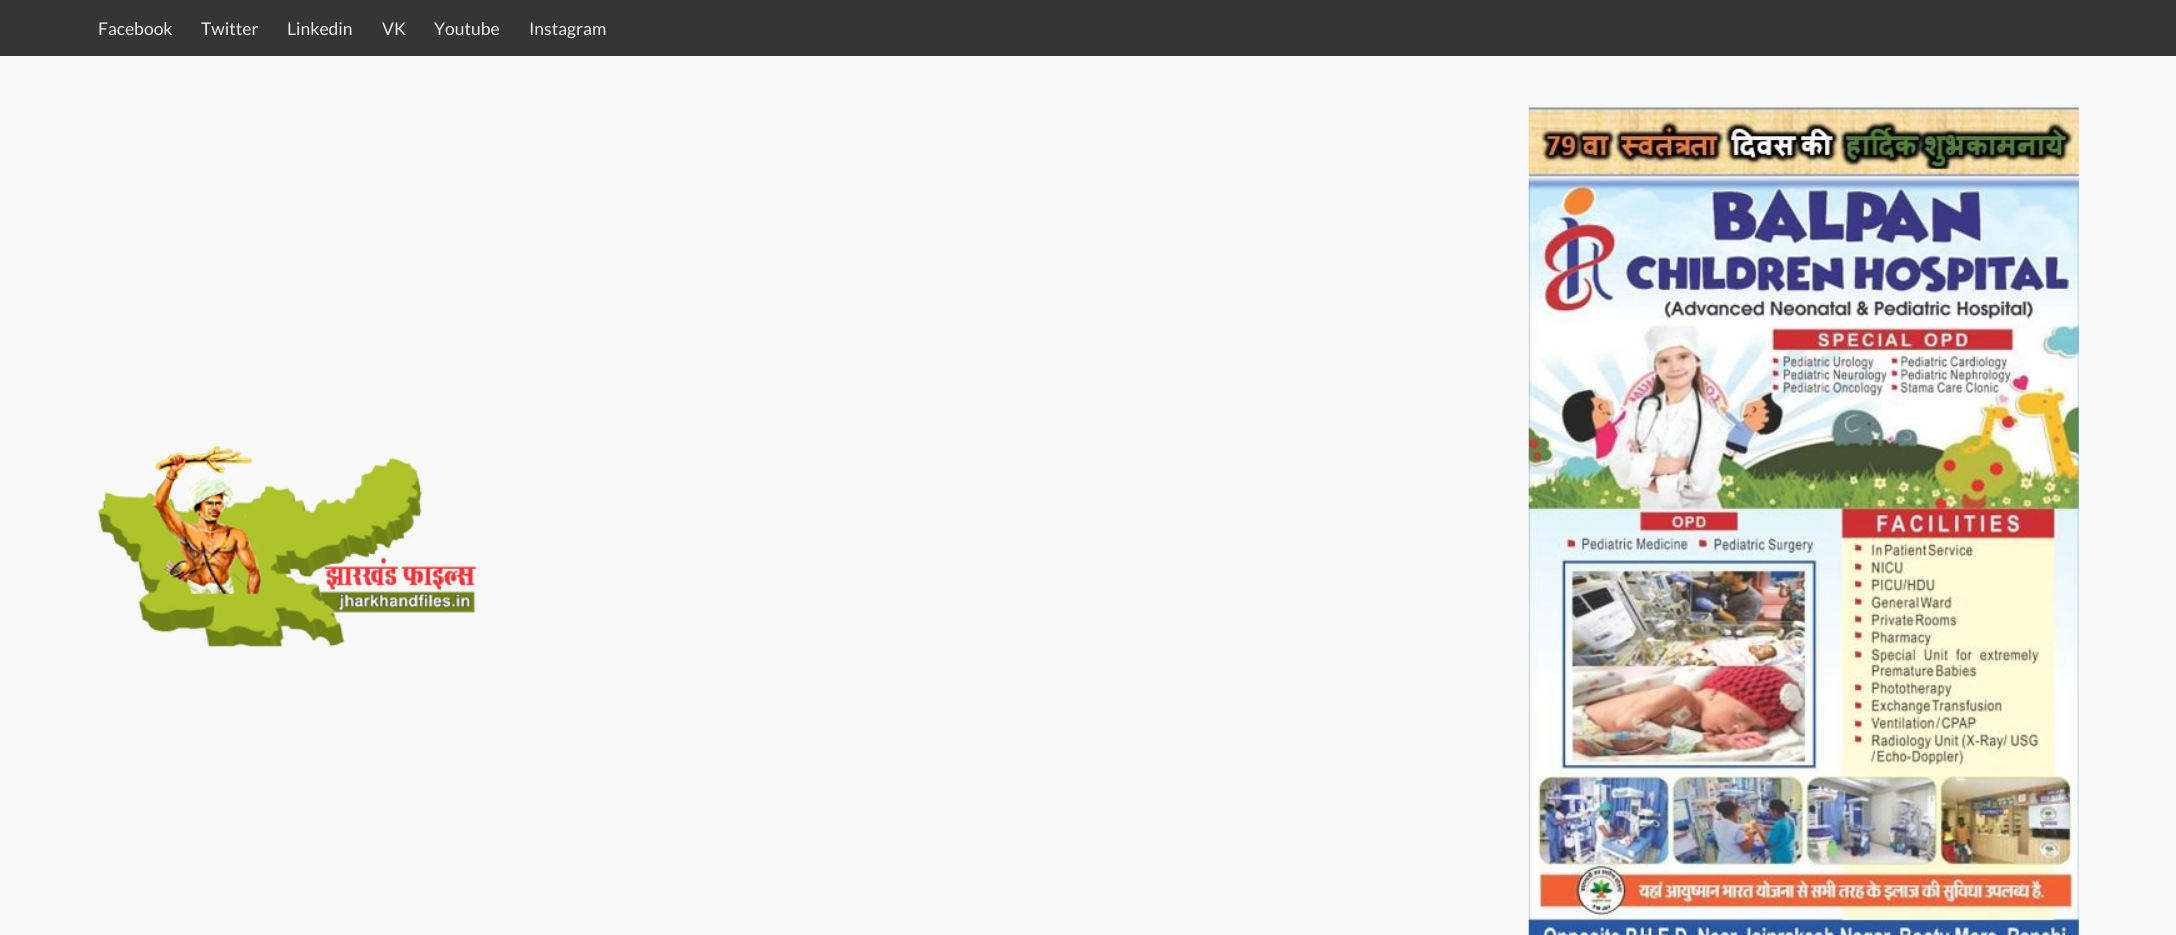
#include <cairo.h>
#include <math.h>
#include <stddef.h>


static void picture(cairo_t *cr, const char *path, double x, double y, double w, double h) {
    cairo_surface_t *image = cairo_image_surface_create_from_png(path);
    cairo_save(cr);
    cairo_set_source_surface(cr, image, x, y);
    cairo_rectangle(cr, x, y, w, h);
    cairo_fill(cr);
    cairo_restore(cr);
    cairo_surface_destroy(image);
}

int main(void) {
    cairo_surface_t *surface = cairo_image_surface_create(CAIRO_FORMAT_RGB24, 2176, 935);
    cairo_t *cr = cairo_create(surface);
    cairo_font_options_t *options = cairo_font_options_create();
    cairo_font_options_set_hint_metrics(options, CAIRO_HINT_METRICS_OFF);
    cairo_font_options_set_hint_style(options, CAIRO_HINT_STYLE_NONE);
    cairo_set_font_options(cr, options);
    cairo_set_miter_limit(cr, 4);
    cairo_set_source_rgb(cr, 0.969, 0.969, 0.969);
    cairo_paint(cr);
    cairo_set_source_rgb(cr, 0.208, 0.208, 0.208);
    cairo_rectangle(cr, 0, 0, 2176, 56);
    cairo_fill(cr);
    cairo_select_font_face(cr, "Lato", CAIRO_FONT_SLANT_NORMAL, CAIRO_FONT_WEIGHT_NORMAL);
    cairo_set_font_size(cr, 17.5);
    cairo_set_source_rgb(cr, 0.922, 0.922, 0.922);
    cairo_move_to(cr, 98, 35);
    cairo_show_text(cr, "Facebook");
    cairo_move_to(cr, 201, 35);
    cairo_show_text(cr, "Twitter");
    cairo_move_to(cr, 287, 35);
    cairo_show_text(cr, "Linkedin");
    cairo_move_to(cr, 382, 35);
    cairo_show_text(cr, "VK");
    cairo_move_to(cr, 434, 35);
    cairo_show_text(cr, "Youtube");
    cairo_move_to(cr, 529, 35);
    cairo_show_text(cr, "Instagram");
    picture(cr, "img1.png", 97, 446, 380, 201);
    picture(cr, "img2.png", 1528, 106, 551, 829);
    cairo_surface_write_to_png(surface, "page.png");
    cairo_font_options_destroy(options);
    cairo_destroy(cr);
    cairo_surface_destroy(surface);
    return 0;
}
